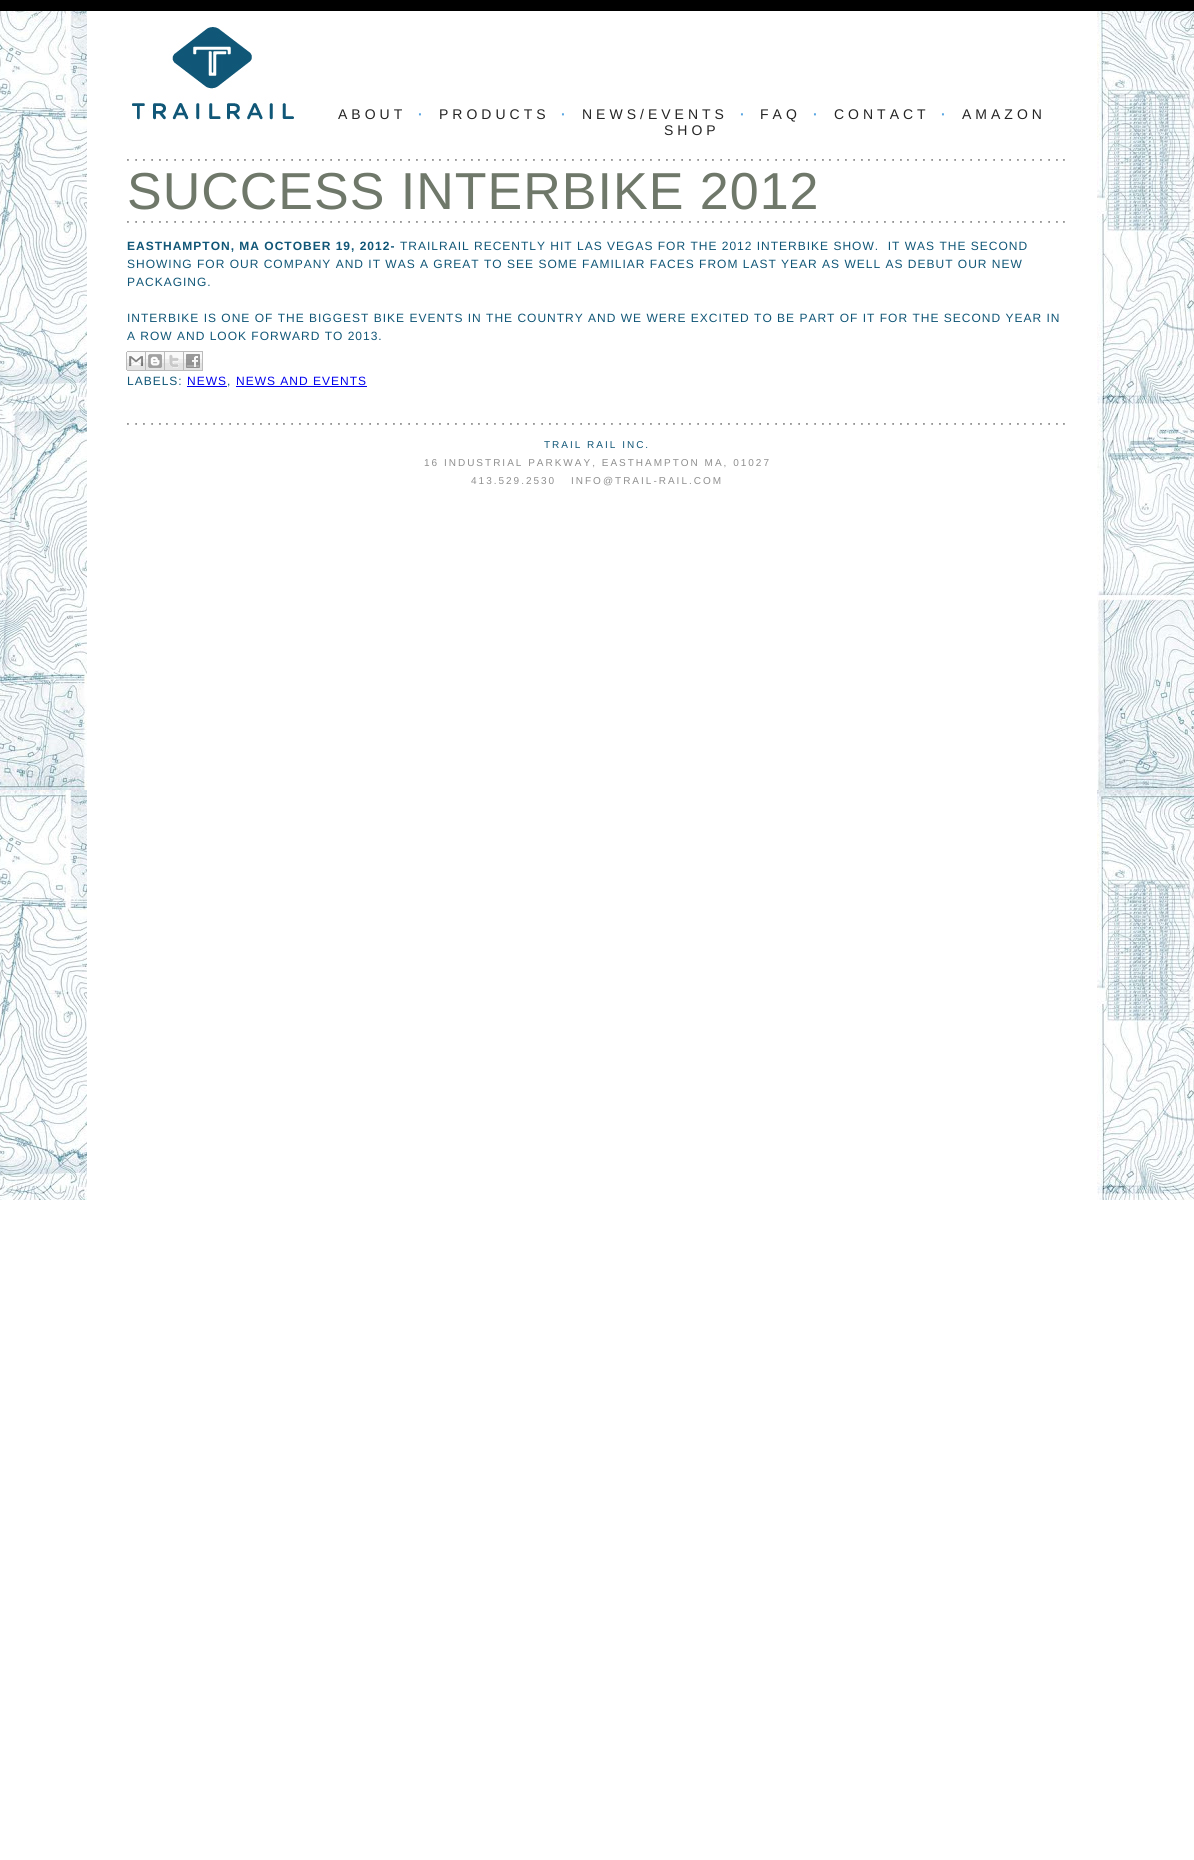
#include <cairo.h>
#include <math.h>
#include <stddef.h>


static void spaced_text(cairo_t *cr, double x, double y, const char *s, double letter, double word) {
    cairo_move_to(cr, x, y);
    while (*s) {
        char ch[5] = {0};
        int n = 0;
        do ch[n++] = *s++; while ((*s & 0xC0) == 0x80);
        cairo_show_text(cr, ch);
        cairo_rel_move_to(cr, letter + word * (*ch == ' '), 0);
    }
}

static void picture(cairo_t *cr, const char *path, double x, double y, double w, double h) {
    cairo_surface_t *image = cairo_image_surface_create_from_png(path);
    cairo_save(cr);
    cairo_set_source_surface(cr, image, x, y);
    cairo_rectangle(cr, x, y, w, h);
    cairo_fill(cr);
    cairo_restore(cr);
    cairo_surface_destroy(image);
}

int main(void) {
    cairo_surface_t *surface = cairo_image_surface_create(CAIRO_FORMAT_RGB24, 1194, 1860);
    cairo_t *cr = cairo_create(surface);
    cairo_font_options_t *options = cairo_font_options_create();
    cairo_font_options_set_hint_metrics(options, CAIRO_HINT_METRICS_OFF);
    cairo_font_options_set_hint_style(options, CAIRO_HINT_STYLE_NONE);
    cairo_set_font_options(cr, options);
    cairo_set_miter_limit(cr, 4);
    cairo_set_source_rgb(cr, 1, 1, 1);
    cairo_paint(cr);
    cairo_set_source_rgb(cr, 0, 0, 0);
    cairo_rectangle(cr, 0, 0, 1194, 11);
    cairo_fill(cr);
    picture(cr, "img1.png", 0, 11, 87, 1189);
    picture(cr, "img2.png", 132, 27, 162, 93);
    cairo_select_font_face(cr, "Liberation Sans", CAIRO_FONT_SLANT_NORMAL, CAIRO_FONT_WEIGHT_NORMAL);
    cairo_set_font_size(cr, 14);
    cairo_set_source_rgb(cr, 0.141, 0.141, 0.141);
    spaced_text(cr, 338, 119, "ABOUT", 4, 0);
    cairo_select_font_face(cr, "Liberation Sans", CAIRO_FONT_SLANT_NORMAL, CAIRO_FONT_WEIGHT_BOLD);
    cairo_set_source_rgb(cr, 0.341, 0.647, 0.886);
    spaced_text(cr, 418, 119, "·", 4, 0);
    cairo_select_font_face(cr, "Liberation Sans", CAIRO_FONT_SLANT_NORMAL, CAIRO_FONT_WEIGHT_NORMAL);
    cairo_set_source_rgb(cr, 0.141, 0.141, 0.141);
    spaced_text(cr, 439, 119, "PRODUCTS", 4, 0);
    cairo_select_font_face(cr, "Liberation Sans", CAIRO_FONT_SLANT_NORMAL, CAIRO_FONT_WEIGHT_BOLD);
    cairo_set_source_rgb(cr, 0.341, 0.647, 0.886);
    spaced_text(cr, 561, 119, "·", 4, 0);
    cairo_select_font_face(cr, "Liberation Sans", CAIRO_FONT_SLANT_NORMAL, CAIRO_FONT_WEIGHT_NORMAL);
    cairo_set_source_rgb(cr, 0.141, 0.141, 0.141);
    spaced_text(cr, 582, 119, "NEWS/EVENTS", 4, 0);
    cairo_select_font_face(cr, "Liberation Sans", CAIRO_FONT_SLANT_NORMAL, CAIRO_FONT_WEIGHT_BOLD);
    cairo_set_source_rgb(cr, 0.341, 0.647, 0.886);
    spaced_text(cr, 740, 119, "·", 4, 0);
    cairo_select_font_face(cr, "Liberation Sans", CAIRO_FONT_SLANT_NORMAL, CAIRO_FONT_WEIGHT_NORMAL);
    cairo_set_source_rgb(cr, 0.141, 0.141, 0.141);
    spaced_text(cr, 760, 119, "FAQ", 4, 0);
    cairo_select_font_face(cr, "Liberation Sans", CAIRO_FONT_SLANT_NORMAL, CAIRO_FONT_WEIGHT_BOLD);
    cairo_set_source_rgb(cr, 0.341, 0.647, 0.886);
    spaced_text(cr, 813, 119, "·", 4, 0);
    cairo_select_font_face(cr, "Liberation Sans", CAIRO_FONT_SLANT_NORMAL, CAIRO_FONT_WEIGHT_NORMAL);
    cairo_set_source_rgb(cr, 0.141, 0.141, 0.141);
    spaced_text(cr, 834, 119, "CONTACT", 4, 0);
    cairo_select_font_face(cr, "Liberation Sans", CAIRO_FONT_SLANT_NORMAL, CAIRO_FONT_WEIGHT_BOLD);
    cairo_set_source_rgb(cr, 0.341, 0.647, 0.886);
    spaced_text(cr, 941, 119, "·", 4, 0);
    cairo_select_font_face(cr, "Liberation Sans", CAIRO_FONT_SLANT_NORMAL, CAIRO_FONT_WEIGHT_NORMAL);
    cairo_set_source_rgb(cr, 0.141, 0.141, 0.141);
    spaced_text(cr, 962, 119, "AMAZON", 4, 0);
    spaced_text(cr, 664, 135, "SHOP", 4, 0);
    picture(cr, "img3.png", 127, 159, 938, 2);
    cairo_set_font_size(cr, 52);
    cairo_set_source_rgb(cr, 0.435, 0.471, 0.416);
    spaced_text(cr, 127, 209, "SUCCESS INTERBIKE 2012", 1, 0);
    picture(cr, "img3.png", 127, 221, 938, 2);
    cairo_select_font_face(cr, "Liberation Sans", CAIRO_FONT_SLANT_NORMAL, CAIRO_FONT_WEIGHT_BOLD);
    cairo_set_font_size(cr, 12);
    cairo_set_source_rgb(cr, 0.063, 0.337, 0.467);
    spaced_text(cr, 127, 250, "EASTHAMPTON, MA OCTOBER 19, 2012-", 1, 0);
    cairo_select_font_face(cr, "Liberation Sans", CAIRO_FONT_SLANT_NORMAL, CAIRO_FONT_WEIGHT_NORMAL);
    spaced_text(cr, 400, 250, "TRAILRAIL RECENTLY HIT LAS VEGAS FOR THE 2012 INTERBIKE SHOW.  IT WAS THE SECOND", 1, 0);
    spaced_text(cr, 127, 268, "SHOWING FOR OUR COMPANY AND IT WAS A GREAT TO SEE SOME FAMILIAR FACES FROM LAST YEAR AS WELL AS DEBUT OUR NEW", 1, 0);
    spaced_text(cr, 127, 286, "PACKAGING.", 1, 0);
    spaced_text(cr, 127, 322, "INTERBIKE IS ONE OF THE BIGGEST BIKE EVENTS IN THE COUNTRY AND WE WERE EXCITED TO BE PART OF IT FOR THE SECOND YEAR IN", 1, 0);
    spaced_text(cr, 127, 340, "A ROW AND LOOK FORWARD TO 2013.", 1, 0);
    picture(cr, "img4.png", 126, 351, 20, 20);
    picture(cr, "img5.png", 146, 351, 19, 20);
    picture(cr, "img6.png", 165, 351, 19, 20);
    picture(cr, "img7.png", 184, 351, 19, 20);
    spaced_text(cr, 127, 385, "LABELS:", 1, 0);
    cairo_set_source_rgb(cr, 0, 0, 0.933);
    spaced_text(cr, 187, 385, "NEWS", 1, 0);
    cairo_set_source_rgb(cr, 0.063, 0.337, 0.467);
    spaced_text(cr, 227, 385, ",", 1, 0);
    cairo_set_source_rgb(cr, 0, 0, 0.933);
    cairo_rectangle(cr, 187, 386, 40, 1);
    cairo_fill(cr);
    cairo_rectangle(cr, 236, 386, 131, 1);
    cairo_fill(cr);
    spaced_text(cr, 236, 385, "NEWS AND EVENTS", 1, 0);
    picture(cr, "img3.png", 127, 423, 938, 2);
    cairo_set_font_size(cr, 10);
    cairo_set_source_rgb(cr, 0.063, 0.337, 0.467);
    spaced_text(cr, 544, 448, "TRAIL RAIL INC.", 2, 0);
    cairo_set_source_rgb(cr, 0.557, 0.557, 0.557);
    spaced_text(cr, 424, 466, "16 INDUSTRIAL PARKWAY, EASTHAMPTON MA, 01027", 2, 0);
    spaced_text(cr, 471, 484, "413.529.2530", 2, 0);
    spaced_text(cr, 571, 484, "INFO@TRAIL-RAIL.COM", 2, 0);
    picture(cr, "img8.png", 1097, 11, 97, 1189);
    cairo_surface_write_to_png(surface, "page.png");
    cairo_font_options_destroy(options);
    cairo_destroy(cr);
    cairo_surface_destroy(surface);
    return 0;
}
